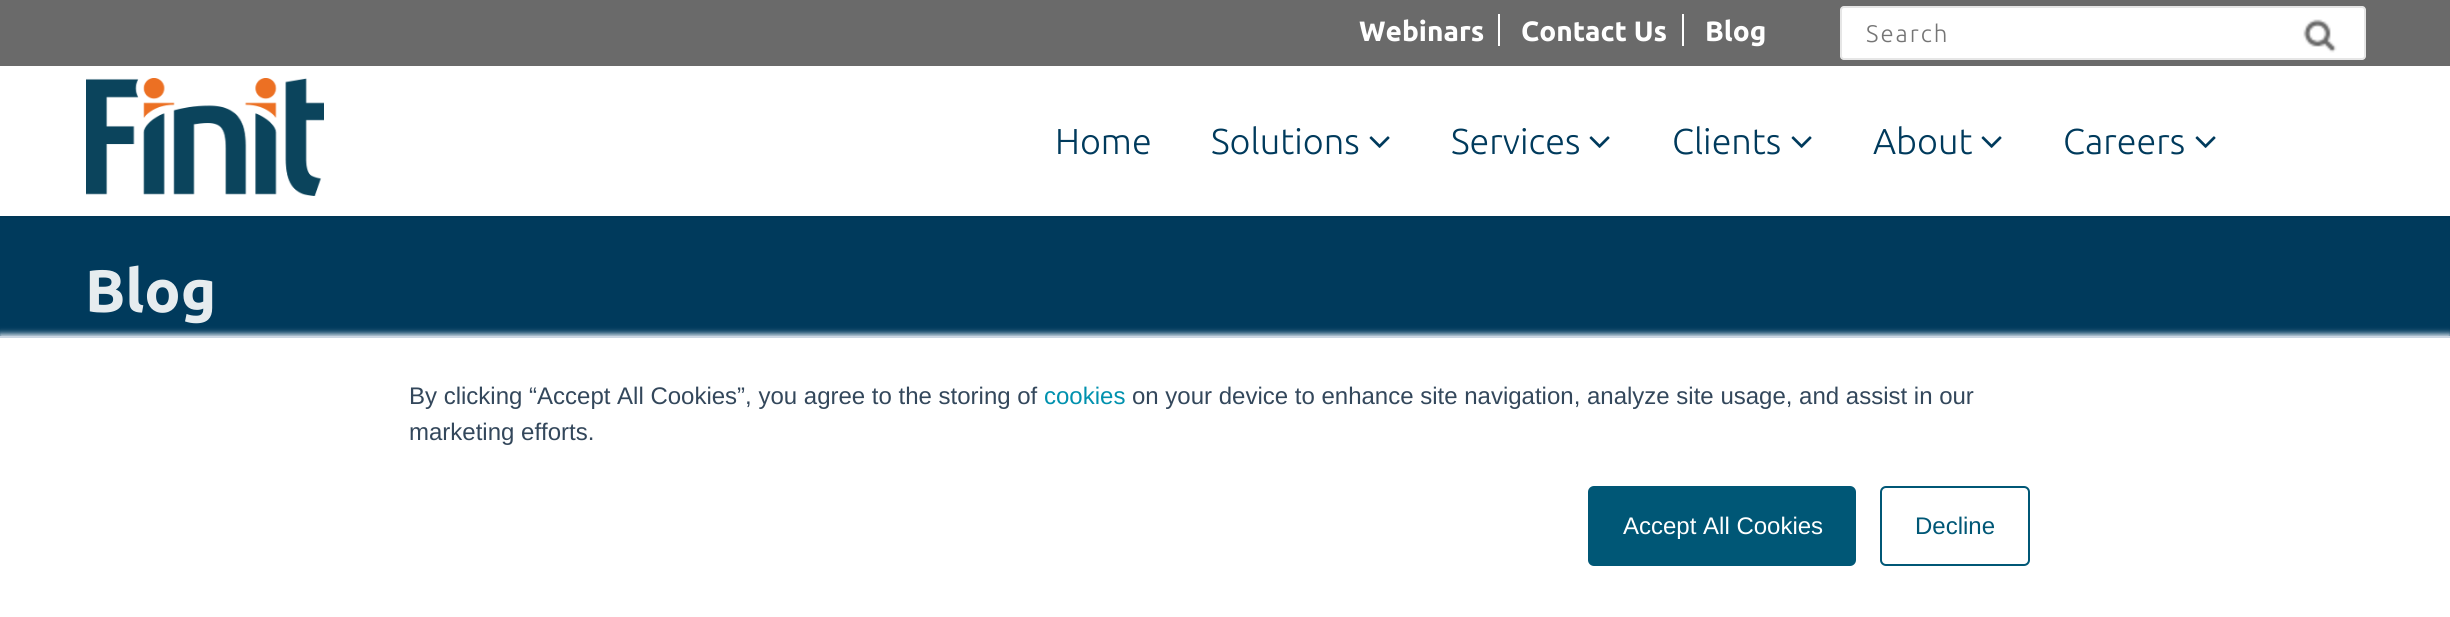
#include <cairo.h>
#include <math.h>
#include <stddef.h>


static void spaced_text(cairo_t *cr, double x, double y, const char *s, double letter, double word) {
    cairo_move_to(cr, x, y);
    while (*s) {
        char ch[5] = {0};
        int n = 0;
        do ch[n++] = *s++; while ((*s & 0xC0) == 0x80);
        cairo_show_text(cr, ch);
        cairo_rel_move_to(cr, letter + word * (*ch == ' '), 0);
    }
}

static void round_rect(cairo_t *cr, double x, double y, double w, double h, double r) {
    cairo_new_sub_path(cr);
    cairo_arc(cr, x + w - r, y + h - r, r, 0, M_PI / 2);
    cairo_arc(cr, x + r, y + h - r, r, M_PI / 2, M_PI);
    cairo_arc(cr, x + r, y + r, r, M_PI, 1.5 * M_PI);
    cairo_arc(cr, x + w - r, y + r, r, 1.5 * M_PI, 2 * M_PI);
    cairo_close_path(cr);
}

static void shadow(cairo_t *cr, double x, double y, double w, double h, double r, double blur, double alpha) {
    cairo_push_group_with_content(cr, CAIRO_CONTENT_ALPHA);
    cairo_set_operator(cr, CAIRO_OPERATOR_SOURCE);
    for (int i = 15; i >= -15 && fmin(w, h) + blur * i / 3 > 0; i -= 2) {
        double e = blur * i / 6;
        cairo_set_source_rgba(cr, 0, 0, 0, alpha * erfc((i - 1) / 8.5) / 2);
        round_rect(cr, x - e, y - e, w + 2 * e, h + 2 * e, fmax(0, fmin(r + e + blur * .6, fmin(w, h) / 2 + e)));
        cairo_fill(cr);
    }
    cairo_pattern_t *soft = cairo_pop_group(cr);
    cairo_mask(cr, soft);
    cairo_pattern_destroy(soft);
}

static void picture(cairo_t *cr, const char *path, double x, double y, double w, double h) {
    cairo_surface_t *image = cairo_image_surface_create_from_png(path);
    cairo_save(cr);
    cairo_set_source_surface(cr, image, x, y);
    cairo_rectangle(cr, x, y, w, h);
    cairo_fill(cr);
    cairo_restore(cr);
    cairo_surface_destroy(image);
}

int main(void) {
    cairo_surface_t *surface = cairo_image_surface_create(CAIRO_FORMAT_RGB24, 2450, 617);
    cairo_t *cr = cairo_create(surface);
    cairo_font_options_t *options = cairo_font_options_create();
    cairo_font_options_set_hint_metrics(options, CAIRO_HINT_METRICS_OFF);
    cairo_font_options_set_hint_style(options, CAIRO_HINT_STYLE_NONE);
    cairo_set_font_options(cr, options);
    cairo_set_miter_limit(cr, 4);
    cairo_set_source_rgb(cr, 1, 1, 1);
    cairo_paint(cr);
    cairo_set_source_rgb(cr, 0.416, 0.416, 0.416);
    cairo_rectangle(cr, 0, 0, 2450, 66);
    cairo_fill(cr);
    cairo_set_source_rgb(cr, 1, 1, 1);
    cairo_rectangle(cr, 1498, 14, 2, 32);
    cairo_fill(cr);
    cairo_select_font_face(cr, "Ubuntu", CAIRO_FONT_SLANT_NORMAL, CAIRO_FONT_WEIGHT_BOLD);
    cairo_set_font_size(cr, 28);
    cairo_move_to(cr, 1359, 41);
    cairo_show_text(cr, "Webinars");
    cairo_rectangle(cr, 1682, 14, 2, 32);
    cairo_fill(cr);
    cairo_move_to(cr, 1521, 41);
    cairo_show_text(cr, "Contact Us");
    cairo_move_to(cr, 1705, 41);
    cairo_show_text(cr, "Blog");
    round_rect(cr, 1840, 6, 526, 54, 4);
    cairo_fill(cr);
    round_rect(cr, 1841, 7, 524, 52, 3);
    cairo_set_source_rgba(cr, 0, 0, 0, 0.1);
    cairo_stroke(cr);
    cairo_select_font_face(cr, "Ubuntu Light", CAIRO_FONT_SLANT_NORMAL, CAIRO_FONT_WEIGHT_NORMAL);
    cairo_set_font_size(cr, 24);
    cairo_set_source_rgb(cr, 0.459, 0.459, 0.459);
    spaced_text(cr, 1866, 42, "Search", 2, 0);
    picture(cr, "img1.png", 2303, 19, 34, 34);
    cairo_set_source_rgb(cr, 0, 0.216, 0.341);
    cairo_rectangle(cr, 0, 216, 2450, 2);
    cairo_fill(cr);
    picture(cr, "img2.png", 86, 78, 238, 118);
    cairo_set_font_size(cr, 36);
    cairo_set_source_rgb(cr, 0, 0.227, 0.361);
    cairo_move_to(cr, 1055, 154);
    cairo_show_text(cr, "Home");
    cairo_move_to(cr, 1211, 154);
    cairo_show_text(cr, "Solutions");
    picture(cr, "img3.png", 1369, 136, 21, 12);
    cairo_move_to(cr, 1451, 154);
    cairo_show_text(cr, "Services");
    picture(cr, "img3.png", 1589, 136, 21, 12);
    cairo_move_to(cr, 1672, 154);
    cairo_show_text(cr, "Clients");
    picture(cr, "img3.png", 1791, 136, 21, 12);
    cairo_move_to(cr, 1873, 154);
    cairo_show_text(cr, "About");
    picture(cr, "img3.png", 1981, 136, 21, 12);
    cairo_move_to(cr, 2063, 154);
    cairo_show_text(cr, "Careers");
    picture(cr, "img3.png", 2195, 136, 21, 12);
    cairo_rectangle(cr, 0, 218, 2450, 118);
    cairo_fill(cr);
    cairo_select_font_face(cr, "Ubuntu", CAIRO_FONT_SLANT_NORMAL, CAIRO_FONT_WEIGHT_BOLD);
    cairo_set_font_size(cr, 60);
    cairo_set_source_rgb(cr, 0.902, 0.922, 0.937);
    cairo_move_to(cr, 85, 312);
    cairo_show_text(cr, "Blog");
    cairo_set_source_rgb(cr, 0.918, 0.941, 0.965);
    shadow(cr, 0, 334, 2450, 282, 0, 3, 1);
    cairo_set_source_rgb(cr, 1, 1, 1);
    cairo_rectangle(cr, 0, 338, 2450, 279);
    cairo_fill(cr);
    cairo_set_source_rgb(cr, 0.796, 0.839, 0.886);
    cairo_rectangle(cr, 0, 336, 2450, 2);
    cairo_fill(cr);
    cairo_select_font_face(cr, "Liberation Sans", CAIRO_FONT_SLANT_NORMAL, CAIRO_FONT_WEIGHT_NORMAL);
    cairo_set_font_size(cr, 24);
    cairo_set_source_rgb(cr, 0.2, 0.278, 0.357);
    cairo_move_to(cr, 409, 404);
    cairo_show_text(cr, "By clicking “Accept All Cookies”, you agree to the storing of");
    cairo_set_source_rgb(cr, 0, 0.569, 0.682);
    cairo_move_to(cr, 1044, 404);
    cairo_show_text(cr, "cookies");
    cairo_set_source_rgb(cr, 0.2, 0.278, 0.357);
    cairo_move_to(cr, 1132, 404);
    cairo_show_text(cr, "on your device to enhance site navigation, analyze site usage, and assist in our");
    cairo_move_to(cr, 409, 440);
    cairo_show_text(cr, "marketing efforts.");
    cairo_set_source_rgb(cr, 0, 0.341, 0.463);
    round_rect(cr, 1589, 487, 266, 78, 5);
    cairo_fill_preserve(cr);
    cairo_stroke(cr);
    cairo_set_source_rgb(cr, 1, 1, 1);
    cairo_move_to(cr, 1623, 534);
    cairo_show_text(cr, "Accept All Cookies");
    round_rect(cr, 1881, 487, 148, 78, 5);
    cairo_set_source_rgb(cr, 0, 0.341, 0.463);
    cairo_stroke(cr);
    cairo_move_to(cr, 1915, 534);
    cairo_show_text(cr, "Decline");
    cairo_surface_write_to_png(surface, "page.png");
    cairo_font_options_destroy(options);
    cairo_destroy(cr);
    cairo_surface_destroy(surface);
    return 0;
}
